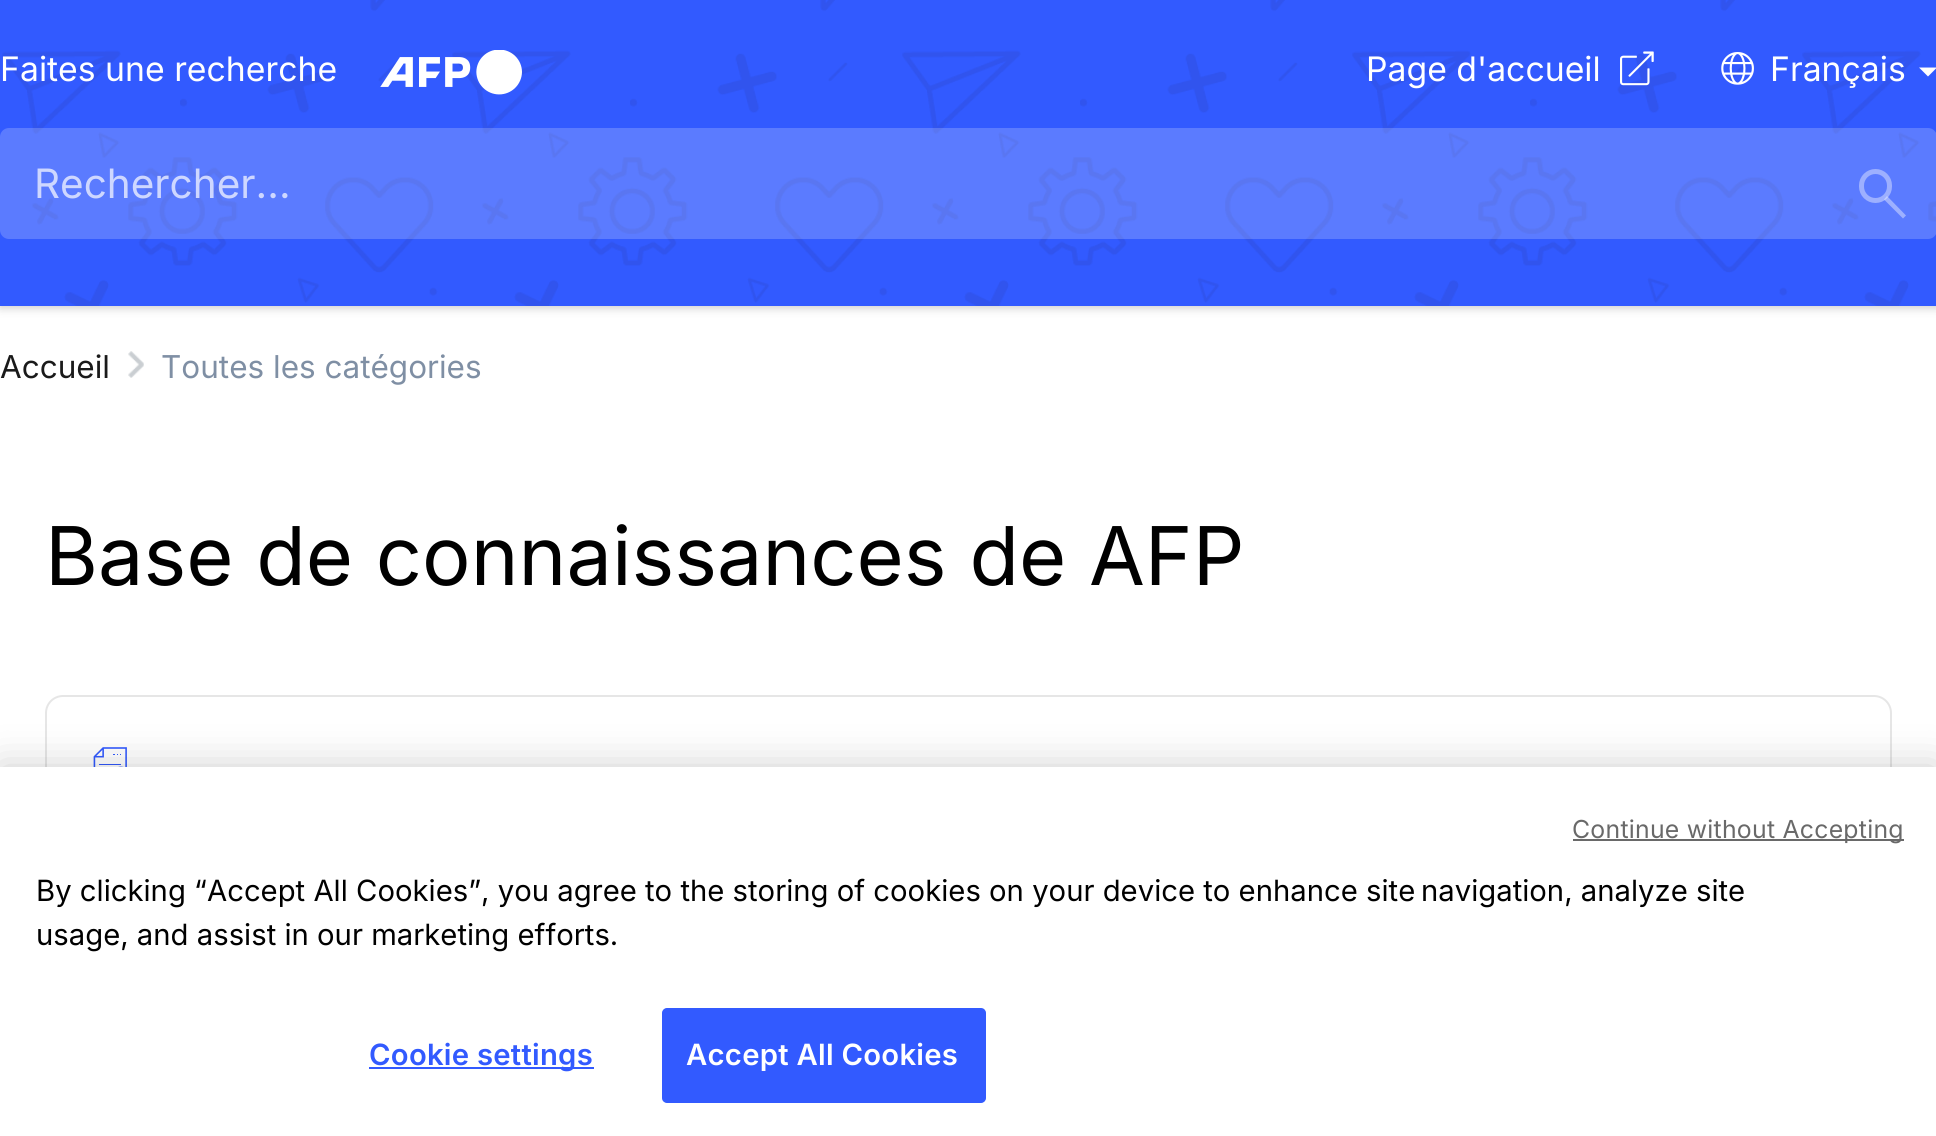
#include <cairo.h>
#include <math.h>
#include <stddef.h>


static void spaced_text(cairo_t *cr, double x, double y, const char *s, double letter, double word) {
    cairo_move_to(cr, x, y);
    while (*s) {
        char ch[5] = {0};
        int n = 0;
        do ch[n++] = *s++; while ((*s & 0xC0) == 0x80);
        cairo_show_text(cr, ch);
        cairo_rel_move_to(cr, letter + word * (*ch == ' '), 0);
    }
}

static void round_rect(cairo_t *cr, double x, double y, double w, double h, double r) {
    cairo_new_sub_path(cr);
    cairo_arc(cr, x + w - r, y + h - r, r, 0, M_PI / 2);
    cairo_arc(cr, x + r, y + h - r, r, M_PI / 2, M_PI);
    cairo_arc(cr, x + r, y + r, r, M_PI, 1.5 * M_PI);
    cairo_arc(cr, x + w - r, y + r, r, 1.5 * M_PI, 2 * M_PI);
    cairo_close_path(cr);
}

static void shadow(cairo_t *cr, double x, double y, double w, double h, double r, double blur, double alpha) {
    cairo_push_group_with_content(cr, CAIRO_CONTENT_ALPHA);
    cairo_set_operator(cr, CAIRO_OPERATOR_SOURCE);
    for (int i = 15; i >= -15 && fmin(w, h) + blur * i / 3 > 0; i -= 2) {
        double e = blur * i / 6;
        cairo_set_source_rgba(cr, 0, 0, 0, alpha * erfc((i - 1) / 8.5) / 2);
        round_rect(cr, x - e, y - e, w + 2 * e, h + 2 * e, fmax(0, fmin(r + e + blur * .6, fmin(w, h) / 2 + e)));
        cairo_fill(cr);
    }
    cairo_pattern_t *soft = cairo_pop_group(cr);
    cairo_mask(cr, soft);
    cairo_pattern_destroy(soft);
}

static void picture(cairo_t *cr, const char *path, double x, double y, double w, double h) {
    cairo_surface_t *image = cairo_image_surface_create_from_png(path);
    cairo_save(cr);
    cairo_set_source_surface(cr, image, x, y);
    cairo_rectangle(cr, x, y, w, h);
    cairo_fill(cr);
    cairo_restore(cr);
    cairo_surface_destroy(image);
}

int main(void) {
    cairo_surface_t *surface = cairo_image_surface_create(CAIRO_FORMAT_RGB24, 1936, 1136);
    cairo_t *cr = cairo_create(surface);
    cairo_font_options_t *options = cairo_font_options_create();
    cairo_font_options_set_hint_metrics(options, CAIRO_HINT_METRICS_OFF);
    cairo_font_options_set_hint_style(options, CAIRO_HINT_STYLE_NONE);
    cairo_set_font_options(cr, options);
    cairo_set_miter_limit(cr, 4);
    cairo_set_source_rgb(cr, 1, 1, 1);
    cairo_paint(cr);
    cairo_set_source_rgb(cr, 0, 0, 0);
    shadow(cr, 0, 2, 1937, 306, 0, 4.5, 0.2);
    cairo_set_source_rgb(cr, 0.196, 0.353, 1);
    cairo_rectangle(cr, 0, 0, 1936, 306);
    cairo_fill(cr);
    picture(cr, "img1.png", 2, 0, 1934, 306);
    cairo_select_font_face(cr, "Inter", CAIRO_FONT_SLANT_NORMAL, CAIRO_FONT_WEIGHT_NORMAL);
    cairo_set_font_size(cr, 33.75);
    cairo_set_source_rgb(cr, 1, 1, 1);
    cairo_move_to(cr, 0, 81);
    cairo_show_text(cr, "Faites une recherche");
    picture(cr, "img2.png", 380, 50, 142, 45);
    cairo_move_to(cr, 1366, 81);
    cairo_show_text(cr, "Page d'accueil");
    picture(cr, "img3.png", 1620, 51, 34, 35);
    picture(cr, "img4.png", 1721, 52, 33, 33);
    cairo_move_to(cr, 1770, 81);
    cairo_show_text(cr, "Français");
    cairo_new_path(cr);
    cairo_move_to(cr, 1919, 67.5);
    cairo_line_to(cr, 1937, 67.5);
    cairo_line_to(cr, 1928, 76.5);
    cairo_close_path(cr);
    cairo_fill(cr);
    cairo_set_source_rgba(cr, 1, 1, 1, 0.2);
    round_rect(cr, 0, 128, 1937, 111, 9);
    cairo_fill(cr);
    cairo_set_font_size(cr, 40.5);
    cairo_set_source_rgb(cr, 0.808, 0.843, 1);
    cairo_move_to(cr, 34, 198);
    cairo_show_text(cr, "Rechercher...");
    round_rect(cr, 1861.5, 171.5, 28, 29, 14);
    cairo_set_source_rgb(cr, 0.616, 0.69, 1);
    cairo_set_line_width(cr, 5);
    cairo_stroke(cr);
    cairo_set_source_rgba(cr, 1, 1, 1, 0.4);
    cairo_new_path(cr);
    cairo_move_to(cr, 1903, 218.5);
    cairo_line_to(cr, 1884, 199.5);
    cairo_line_to(cr, 1887, 196);
    cairo_line_to(cr, 1906, 215.5);
    cairo_close_path(cr);
    cairo_fill(cr);
    cairo_set_font_size(cr, 31.5);
    cairo_set_source_rgb(cr, 0.102, 0.102, 0.102);
    cairo_move_to(cr, 0, 378);
    cairo_show_text(cr, "Accueil");
    picture(cr, "img5.png", 128, 351, 16, 27);
    cairo_set_source_rgb(cr, 0.498, 0.561, 0.643);
    cairo_move_to(cr, 161, 378);
    cairo_show_text(cr, "Toutes les catégories");
    cairo_set_font_size(cr, 81);
    cairo_set_source_rgb(cr, 0, 0, 0);
    cairo_move_to(cr, 45, 585);
    cairo_show_text(cr, "Base de connaissances de AFP");
    round_rect(cr, 46, 696, 1845, 313, 17);
    cairo_set_source_rgb(cr, 0.902, 0.902, 0.902);
    cairo_set_line_width(cr, 2);
    cairo_stroke(cr);
    picture(cr, "img6.png", 93, 747, 34, 20);
    cairo_set_source_rgb(cr, 0, 0, 0);
    shadow(cr, 0, 767, 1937, 369, 0, 20, 0.2);
    cairo_set_source_rgb(cr, 1, 1, 1);
    cairo_rectangle(cr, 0, 767, 1936, 369);
    cairo_fill(cr);
    cairo_set_source_rgb(cr, 0.412, 0.412, 0.412);
    cairo_rectangle(cr, 1573, 839, 331, 2);
    cairo_fill(cr);
    cairo_set_font_size(cr, 24.8);
    spaced_text(cr, 1572, 838, "Continue without Accepting", 0.25, 0);
    cairo_set_font_size(cr, 29.27);
    cairo_set_source_rgb(cr, 0, 0, 0);
    cairo_move_to(cr, 36, 901);
    cairo_show_text(cr, "By clicking “Accept All Cookies”, you agree to the storing of cookies on your device to enhance site");
    cairo_move_to(cr, 1421, 901);
    cairo_show_text(cr, "navigation, analyze site");
    cairo_move_to(cr, 36, 945);
    cairo_show_text(cr, "usage, and assist in our marketing efforts.");
    cairo_set_source_rgb(cr, 0.196, 0.353, 1);
    cairo_rectangle(cr, 369, 1067, 225, 2);
    cairo_fill(cr);
    cairo_select_font_face(cr, "Inter SemiBold", CAIRO_FONT_SLANT_NORMAL, CAIRO_FONT_WEIGHT_NORMAL);
    spaced_text(cr, 369, 1065, "Cookie settings", 0.25, 0);
    round_rect(cr, 663, 1009, 322, 93, 4);
    cairo_fill_preserve(cr);
    cairo_stroke(cr);
    cairo_set_source_rgb(cr, 1, 1, 1);
    spaced_text(cr, 686, 1065, "Accept All Cookies", 0.25, 0);
    cairo_surface_write_to_png(surface, "page.png");
    cairo_font_options_destroy(options);
    cairo_destroy(cr);
    cairo_surface_destroy(surface);
    return 0;
}
